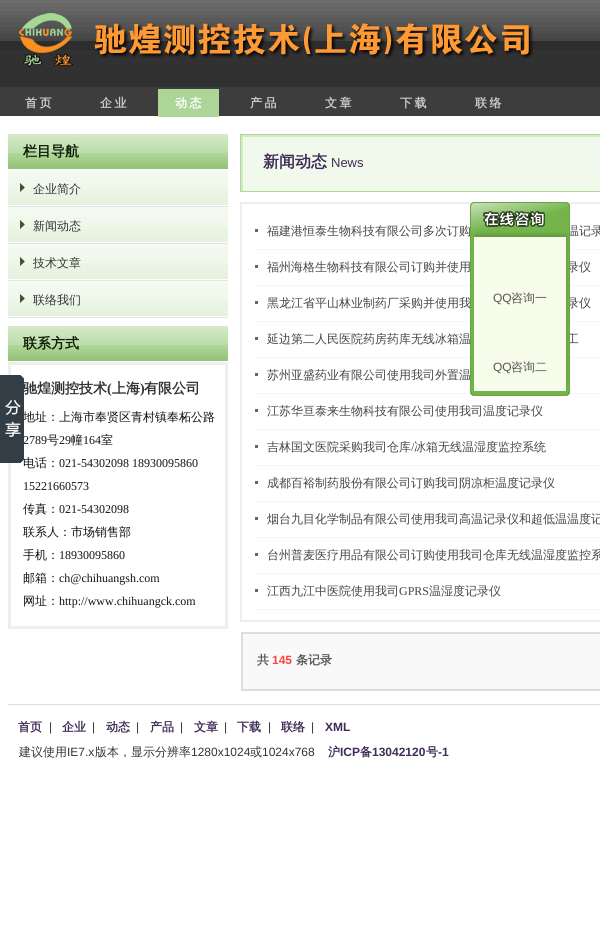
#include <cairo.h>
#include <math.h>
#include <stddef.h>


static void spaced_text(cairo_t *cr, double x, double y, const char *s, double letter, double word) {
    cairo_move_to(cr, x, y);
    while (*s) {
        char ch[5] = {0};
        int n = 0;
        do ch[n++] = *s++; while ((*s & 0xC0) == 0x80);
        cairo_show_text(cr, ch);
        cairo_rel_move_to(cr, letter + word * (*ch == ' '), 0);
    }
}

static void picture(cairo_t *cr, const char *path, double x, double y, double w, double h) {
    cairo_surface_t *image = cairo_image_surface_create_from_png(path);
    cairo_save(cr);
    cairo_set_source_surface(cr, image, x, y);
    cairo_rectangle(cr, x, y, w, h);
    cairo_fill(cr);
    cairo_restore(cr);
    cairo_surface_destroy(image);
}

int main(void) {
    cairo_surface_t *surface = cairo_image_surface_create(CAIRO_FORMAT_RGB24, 600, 949);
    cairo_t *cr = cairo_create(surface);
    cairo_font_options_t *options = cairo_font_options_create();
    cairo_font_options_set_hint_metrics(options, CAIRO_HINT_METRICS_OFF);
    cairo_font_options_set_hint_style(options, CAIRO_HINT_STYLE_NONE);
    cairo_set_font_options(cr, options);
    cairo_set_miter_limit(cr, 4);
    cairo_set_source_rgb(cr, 1, 1, 1);
    cairo_paint(cr);
    picture(cr, "img1.png", 0, 0, 600, 116);
    picture(cr, "img2.png", 19, 13, 515, 54);
    cairo_select_font_face(cr, "WenQuanYi Zen Hei", CAIRO_FONT_SLANT_NORMAL, CAIRO_FONT_WEIGHT_BOLD);
    cairo_set_font_size(cr, 12);
    cairo_set_source_rgb(cr, 0.8, 0.8, 0.8);
    spaced_text(cr, 25, 107, "首 页", 0, -1);
    spaced_text(cr, 100, 107, "企 业", 0, -1);
    cairo_set_source_rgb(cr, 0.678, 0.835, 0.592);
    cairo_rectangle(cr, 158, 89, 61, 28);
    cairo_fill(cr);
    cairo_set_source_rgb(cr, 1, 1, 1);
    spaced_text(cr, 175, 107, "动 态", 0, -1);
    cairo_set_source_rgb(cr, 0.8, 0.8, 0.8);
    spaced_text(cr, 250, 107, "产 品", 0, -1);
    spaced_text(cr, 325, 107, "文 章", 0, -1);
    spaced_text(cr, 400, 107, "下 载", 0, -1);
    spaced_text(cr, 475, 107, "联 络", 0, -1);
    picture(cr, "img3.png", 8, 134, 220, 35);
    cairo_set_font_size(cr, 14);
    cairo_set_source_rgb(cr, 0.063, 0.11, 0.035);
    cairo_move_to(cr, 23, 156);
    cairo_show_text(cr, "栏目导航");
    picture(cr, "img4.png", 8, 170, 220, 37);
    cairo_select_font_face(cr, "WenQuanYi Zen Hei Medium", CAIRO_FONT_SLANT_NORMAL, CAIRO_FONT_WEIGHT_NORMAL);
    cairo_set_font_size(cr, 12);
    cairo_set_source_rgb(cr, 0.2, 0.2, 0.2);
    cairo_move_to(cr, 33, 193);
    cairo_show_text(cr, "企业简介");
    picture(cr, "img4.png", 8, 207, 220, 37);
    cairo_move_to(cr, 33, 230);
    cairo_show_text(cr, "新闻动态");
    picture(cr, "img4.png", 8, 244, 220, 37);
    cairo_move_to(cr, 33, 267);
    cairo_show_text(cr, "技术文章");
    picture(cr, "img4.png", 8, 281, 220, 37);
    cairo_move_to(cr, 33, 304);
    cairo_show_text(cr, "联络我们");
    picture(cr, "img3.png", 8, 326, 220, 35);
    cairo_select_font_face(cr, "WenQuanYi Zen Hei", CAIRO_FONT_SLANT_NORMAL, CAIRO_FONT_WEIGHT_BOLD);
    cairo_set_font_size(cr, 14);
    cairo_set_source_rgb(cr, 0.063, 0.11, 0.035);
    cairo_move_to(cr, 23, 348);
    cairo_show_text(cr, "联系方式");
    cairo_rectangle(cr, 9.5, 363.5, 217, 264);
    cairo_set_source_rgb(cr, 0.933, 0.933, 0.933);
    cairo_set_line_width(cr, 3);
    cairo_stroke(cr);
    cairo_set_source_rgb(cr, 0.2, 0.2, 0.2);
    cairo_move_to(cr, 23, 393);
    cairo_show_text(cr, "驰煌测控技术");
    cairo_select_font_face(cr, "Liberation Serif", CAIRO_FONT_SLANT_NORMAL, CAIRO_FONT_WEIGHT_BOLD);
    cairo_move_to(cr, 107, 393);
    cairo_show_text(cr, "(");
    cairo_select_font_face(cr, "WenQuanYi Zen Hei", CAIRO_FONT_SLANT_NORMAL, CAIRO_FONT_WEIGHT_BOLD);
    cairo_move_to(cr, 112, 393);
    cairo_show_text(cr, "上海");
    cairo_select_font_face(cr, "Liberation Serif", CAIRO_FONT_SLANT_NORMAL, CAIRO_FONT_WEIGHT_BOLD);
    cairo_move_to(cr, 140, 393);
    cairo_show_text(cr, ")");
    cairo_select_font_face(cr, "WenQuanYi Zen Hei", CAIRO_FONT_SLANT_NORMAL, CAIRO_FONT_WEIGHT_BOLD);
    cairo_move_to(cr, 144, 393);
    cairo_show_text(cr, "有限公司");
    cairo_select_font_face(cr, "WenQuanYi Zen Hei Medium", CAIRO_FONT_SLANT_NORMAL, CAIRO_FONT_WEIGHT_NORMAL);
    cairo_set_font_size(cr, 12);
    cairo_set_source_rgb(cr, 0.071, 0.071, 0.071);
    cairo_move_to(cr, 23, 421);
    cairo_show_text(cr, "地址：上海市奉贤区青村镇奉柘公路");
    cairo_select_font_face(cr, "Liberation Serif", CAIRO_FONT_SLANT_NORMAL, CAIRO_FONT_WEIGHT_NORMAL);
    cairo_move_to(cr, 23, 444);
    cairo_show_text(cr, "2789");
    cairo_select_font_face(cr, "WenQuanYi Zen Hei Medium", CAIRO_FONT_SLANT_NORMAL, CAIRO_FONT_WEIGHT_NORMAL);
    cairo_move_to(cr, 47, 444);
    cairo_show_text(cr, "号");
    cairo_select_font_face(cr, "Liberation Serif", CAIRO_FONT_SLANT_NORMAL, CAIRO_FONT_WEIGHT_NORMAL);
    cairo_move_to(cr, 59, 444);
    cairo_show_text(cr, "29");
    cairo_select_font_face(cr, "WenQuanYi Zen Hei Medium", CAIRO_FONT_SLANT_NORMAL, CAIRO_FONT_WEIGHT_NORMAL);
    cairo_move_to(cr, 71, 444);
    cairo_show_text(cr, "幢");
    cairo_select_font_face(cr, "Liberation Serif", CAIRO_FONT_SLANT_NORMAL, CAIRO_FONT_WEIGHT_NORMAL);
    cairo_move_to(cr, 83, 444);
    cairo_show_text(cr, "164");
    cairo_select_font_face(cr, "WenQuanYi Zen Hei Medium", CAIRO_FONT_SLANT_NORMAL, CAIRO_FONT_WEIGHT_NORMAL);
    cairo_move_to(cr, 101, 444);
    cairo_show_text(cr, "室");
    cairo_move_to(cr, 23, 467);
    cairo_show_text(cr, "电话：");
    cairo_select_font_face(cr, "Liberation Serif", CAIRO_FONT_SLANT_NORMAL, CAIRO_FONT_WEIGHT_NORMAL);
    cairo_move_to(cr, 59, 467);
    cairo_show_text(cr, "021-54302098 18930095860");
    cairo_move_to(cr, 23, 490);
    cairo_show_text(cr, "15221660573");
    cairo_select_font_face(cr, "WenQuanYi Zen Hei Medium", CAIRO_FONT_SLANT_NORMAL, CAIRO_FONT_WEIGHT_NORMAL);
    cairo_move_to(cr, 23, 513);
    cairo_show_text(cr, "传真：");
    cairo_select_font_face(cr, "Liberation Serif", CAIRO_FONT_SLANT_NORMAL, CAIRO_FONT_WEIGHT_NORMAL);
    cairo_move_to(cr, 59, 513);
    cairo_show_text(cr, "021-54302098");
    cairo_select_font_face(cr, "WenQuanYi Zen Hei Medium", CAIRO_FONT_SLANT_NORMAL, CAIRO_FONT_WEIGHT_NORMAL);
    cairo_move_to(cr, 23, 536);
    cairo_show_text(cr, "联系人：市场销售部");
    cairo_move_to(cr, 23, 559);
    cairo_show_text(cr, "手机：");
    cairo_select_font_face(cr, "Liberation Serif", CAIRO_FONT_SLANT_NORMAL, CAIRO_FONT_WEIGHT_NORMAL);
    cairo_move_to(cr, 59, 559);
    cairo_show_text(cr, "18930095860");
    cairo_select_font_face(cr, "WenQuanYi Zen Hei Medium", CAIRO_FONT_SLANT_NORMAL, CAIRO_FONT_WEIGHT_NORMAL);
    cairo_move_to(cr, 23, 582);
    cairo_show_text(cr, "邮箱：");
    cairo_select_font_face(cr, "Liberation Serif", CAIRO_FONT_SLANT_NORMAL, CAIRO_FONT_WEIGHT_NORMAL);
    cairo_move_to(cr, 59, 582);
    cairo_show_text(cr, "ch@chihuangsh.com");
    cairo_select_font_face(cr, "WenQuanYi Zen Hei Medium", CAIRO_FONT_SLANT_NORMAL, CAIRO_FONT_WEIGHT_NORMAL);
    cairo_move_to(cr, 23, 605);
    cairo_show_text(cr, "网址：");
    cairo_select_font_face(cr, "Liberation Serif", CAIRO_FONT_SLANT_NORMAL, CAIRO_FONT_WEIGHT_NORMAL);
    cairo_move_to(cr, 59, 605);
    cairo_show_text(cr, "http://www.chihuangck.com");
    cairo_rectangle(cr, 240.5, 134.5, 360, 57);
    cairo_set_source_rgb(cr, 0.682, 0.847, 0.596);
    cairo_set_line_width(cr, 1);
    cairo_stroke(cr);
    cairo_set_source_rgb(cr, 0.945, 0.973, 0.929);
    cairo_rectangle(cr, 243, 137, 357, 54);
    cairo_fill(cr);
    cairo_save(cr);
    cairo_rectangle(cr, 241, 135, 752, 56);
    cairo_clip(cr);
    cairo_rectangle(cr, 242, 136, 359, 57);
    cairo_set_source_rgb(cr, 0.82, 0.918, 0.765);
    cairo_set_line_width(cr, 2);
    cairo_stroke(cr);
    cairo_restore(cr);
    cairo_select_font_face(cr, "WenQuanYi Zen Hei", CAIRO_FONT_SLANT_NORMAL, CAIRO_FONT_WEIGHT_BOLD);
    cairo_set_font_size(cr, 16);
    cairo_set_source_rgb(cr, 0.247, 0.173, 0.341);
    cairo_move_to(cr, 263, 167);
    cairo_show_text(cr, "新闻动态");
    cairo_select_font_face(cr, "Liberation Sans", CAIRO_FONT_SLANT_NORMAL, CAIRO_FONT_WEIGHT_NORMAL);
    cairo_set_font_size(cr, 13);
    cairo_move_to(cr, 331, 167);
    cairo_show_text(cr, "News");
    cairo_rectangle(cr, 241, 203, 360, 418);
    cairo_set_source_rgb(cr, 0.933, 0.933, 0.933);
    cairo_set_line_width(cr, 2);
    cairo_stroke(cr);
    cairo_set_source_rgb(cr, 0.4, 0.4, 0.4);
    cairo_rectangle(cr, 255, 229, 3, 3);
    cairo_fill(cr);
    cairo_new_path(cr);
    cairo_move_to(cr, 254, 249.5);
    cairo_line_to(cr, 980, 249.5);
    cairo_set_source_rgb(cr, 0.933, 0.933, 0.933);
    cairo_set_line_width(cr, 1);
    cairo_set_dash(cr, (double[]){1, 1}, 2, 0);
    cairo_stroke(cr);
    cairo_select_font_face(cr, "WenQuanYi Zen Hei Medium", CAIRO_FONT_SLANT_NORMAL, CAIRO_FONT_WEIGHT_NORMAL);
    cairo_set_font_size(cr, 12);
    cairo_set_source_rgb(cr, 0.271, 0.271, 0.271);
    cairo_move_to(cr, 267, 235);
    cairo_show_text(cr, "福建港恒泰生物科技有限公司多次订购");
    cairo_move_to(cr, 567, 235);
    cairo_show_text(cr, "温记录");
    cairo_set_source_rgb(cr, 0.4, 0.4, 0.4);
    cairo_rectangle(cr, 255, 265, 3, 3);
    cairo_fill(cr);
    cairo_new_path(cr);
    cairo_move_to(cr, 254, 285.5);
    cairo_line_to(cr, 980, 285.5);
    cairo_set_source_rgb(cr, 0.933, 0.933, 0.933);
    cairo_stroke(cr);
    cairo_set_source_rgb(cr, 0.271, 0.271, 0.271);
    cairo_move_to(cr, 267, 271);
    cairo_show_text(cr, "福州海格生物科技有限公司订购并使用");
    cairo_move_to(cr, 567, 271);
    cairo_show_text(cr, "录仪");
    cairo_set_source_rgb(cr, 0.4, 0.4, 0.4);
    cairo_rectangle(cr, 255, 301, 3, 3);
    cairo_fill(cr);
    cairo_new_path(cr);
    cairo_move_to(cr, 254, 321.5);
    cairo_line_to(cr, 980, 321.5);
    cairo_set_source_rgb(cr, 0.933, 0.933, 0.933);
    cairo_stroke(cr);
    cairo_set_source_rgb(cr, 0.271, 0.271, 0.271);
    cairo_move_to(cr, 267, 307);
    cairo_show_text(cr, "黑龙江省平山林业制药厂采购并使用我");
    cairo_move_to(cr, 567, 307);
    cairo_show_text(cr, "录仪");
    cairo_set_source_rgb(cr, 0.4, 0.4, 0.4);
    cairo_rectangle(cr, 255, 337, 3, 3);
    cairo_fill(cr);
    cairo_new_path(cr);
    cairo_move_to(cr, 254, 357.5);
    cairo_line_to(cr, 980, 357.5);
    cairo_set_source_rgb(cr, 0.933, 0.933, 0.933);
    cairo_stroke(cr);
    cairo_set_source_rgb(cr, 0.271, 0.271, 0.271);
    cairo_move_to(cr, 267, 343);
    cairo_show_text(cr, "延边第二人民医院药房药库无线冰箱温");
    cairo_move_to(cr, 567, 343);
    cairo_show_text(cr, "工");
    cairo_set_source_rgb(cr, 0.4, 0.4, 0.4);
    cairo_rectangle(cr, 255, 373, 3, 3);
    cairo_fill(cr);
    cairo_new_path(cr);
    cairo_move_to(cr, 254, 393.5);
    cairo_line_to(cr, 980, 393.5);
    cairo_set_source_rgb(cr, 0.933, 0.933, 0.933);
    cairo_stroke(cr);
    cairo_set_source_rgb(cr, 0.271, 0.271, 0.271);
    cairo_move_to(cr, 267, 379);
    cairo_show_text(cr, "苏州亚盛药业有限公司使用我司外置温");
    cairo_set_source_rgb(cr, 0.4, 0.4, 0.4);
    cairo_rectangle(cr, 255, 409, 3, 3);
    cairo_fill(cr);
    cairo_new_path(cr);
    cairo_move_to(cr, 254, 429.5);
    cairo_line_to(cr, 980, 429.5);
    cairo_set_source_rgb(cr, 0.933, 0.933, 0.933);
    cairo_stroke(cr);
    cairo_set_source_rgb(cr, 0.271, 0.271, 0.271);
    cairo_move_to(cr, 267, 415);
    cairo_show_text(cr, "江苏华亘泰来生物科技有限公司使用我司温度记录仪");
    cairo_set_source_rgb(cr, 0.4, 0.4, 0.4);
    cairo_rectangle(cr, 255, 445, 3, 3);
    cairo_fill(cr);
    cairo_new_path(cr);
    cairo_move_to(cr, 254, 465.5);
    cairo_line_to(cr, 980, 465.5);
    cairo_set_source_rgb(cr, 0.933, 0.933, 0.933);
    cairo_stroke(cr);
    cairo_set_source_rgb(cr, 0.271, 0.271, 0.271);
    cairo_move_to(cr, 267, 451);
    cairo_show_text(cr, "吉林国文医院采购我司仓库");
    cairo_select_font_face(cr, "Liberation Serif", CAIRO_FONT_SLANT_NORMAL, CAIRO_FONT_WEIGHT_NORMAL);
    cairo_move_to(cr, 411, 451);
    cairo_show_text(cr, "/");
    cairo_select_font_face(cr, "WenQuanYi Zen Hei Medium", CAIRO_FONT_SLANT_NORMAL, CAIRO_FONT_WEIGHT_NORMAL);
    cairo_move_to(cr, 414, 451);
    cairo_show_text(cr, "冰箱无线温湿度监控系统");
    cairo_set_source_rgb(cr, 0.4, 0.4, 0.4);
    cairo_rectangle(cr, 255, 481, 3, 3);
    cairo_fill(cr);
    cairo_new_path(cr);
    cairo_move_to(cr, 254, 501.5);
    cairo_line_to(cr, 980, 501.5);
    cairo_set_source_rgb(cr, 0.933, 0.933, 0.933);
    cairo_stroke(cr);
    cairo_set_source_rgb(cr, 0.271, 0.271, 0.271);
    cairo_move_to(cr, 267, 487);
    cairo_show_text(cr, "成都百裕制药股份有限公司订购我司阴凉柜温度记录仪");
    cairo_set_source_rgb(cr, 0.4, 0.4, 0.4);
    cairo_rectangle(cr, 255, 517, 3, 3);
    cairo_fill(cr);
    cairo_new_path(cr);
    cairo_move_to(cr, 254, 537.5);
    cairo_line_to(cr, 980, 537.5);
    cairo_set_source_rgb(cr, 0.933, 0.933, 0.933);
    cairo_stroke(cr);
    cairo_set_source_rgb(cr, 0.271, 0.271, 0.271);
    cairo_move_to(cr, 267, 523);
    cairo_show_text(cr, "烟台九目化学制品有限公司使用我司高温记录仪和超低温温度记");
    cairo_set_source_rgb(cr, 0.4, 0.4, 0.4);
    cairo_rectangle(cr, 255, 553, 3, 3);
    cairo_fill(cr);
    cairo_new_path(cr);
    cairo_move_to(cr, 254, 573.5);
    cairo_line_to(cr, 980, 573.5);
    cairo_set_source_rgb(cr, 0.933, 0.933, 0.933);
    cairo_stroke(cr);
    cairo_set_source_rgb(cr, 0.271, 0.271, 0.271);
    cairo_move_to(cr, 267, 559);
    cairo_show_text(cr, "台州普麦医疗用品有限公司订购使用我司仓库无线温湿度监控系");
    cairo_set_source_rgb(cr, 0.4, 0.4, 0.4);
    cairo_rectangle(cr, 255, 589, 3, 3);
    cairo_fill(cr);
    cairo_new_path(cr);
    cairo_move_to(cr, 254, 609.5);
    cairo_line_to(cr, 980, 609.5);
    cairo_set_source_rgb(cr, 0.933, 0.933, 0.933);
    cairo_stroke(cr);
    cairo_set_source_rgb(cr, 0.271, 0.271, 0.271);
    cairo_move_to(cr, 267, 595);
    cairo_show_text(cr, "江西九江中医院使用我司");
    cairo_select_font_face(cr, "Liberation Serif", CAIRO_FONT_SLANT_NORMAL, CAIRO_FONT_WEIGHT_NORMAL);
    cairo_move_to(cr, 399, 595);
    cairo_show_text(cr, "GPRS");
    cairo_select_font_face(cr, "WenQuanYi Zen Hei Medium", CAIRO_FONT_SLANT_NORMAL, CAIRO_FONT_WEIGHT_NORMAL);
    cairo_move_to(cr, 429, 595);
    cairo_show_text(cr, "温湿度记录仪");
    cairo_set_source_rgb(cr, 0.976, 0.976, 0.976);
    cairo_rectangle(cr, 242, 633, 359, 57);
    cairo_fill_preserve(cr);
    cairo_set_source_rgb(cr, 0.867, 0.867, 0.867);
    cairo_set_line_width(cr, 2);
    cairo_set_dash(cr, NULL, 0, 0);
    cairo_stroke(cr);
    cairo_select_font_face(cr, "WenQuanYi Zen Hei", CAIRO_FONT_SLANT_NORMAL, CAIRO_FONT_WEIGHT_BOLD);
    cairo_set_source_rgb(cr, 0.333, 0.333, 0.333);
    cairo_move_to(cr, 257, 664);
    cairo_show_text(cr, "共");
    cairo_select_font_face(cr, "Liberation Sans", CAIRO_FONT_SLANT_NORMAL, CAIRO_FONT_WEIGHT_BOLD);
    cairo_set_source_rgb(cr, 0.992, 0.263, 0.243);
    cairo_move_to(cr, 272, 664);
    cairo_show_text(cr, "145");
    cairo_select_font_face(cr, "WenQuanYi Zen Hei", CAIRO_FONT_SLANT_NORMAL, CAIRO_FONT_WEIGHT_BOLD);
    cairo_set_source_rgb(cr, 0.333, 0.333, 0.333);
    cairo_move_to(cr, 296, 664);
    cairo_show_text(cr, "条记录");
    cairo_set_source_rgb(cr, 0.867, 0.867, 0.867);
    cairo_rectangle(cr, 8, 704, 592, 1);
    cairo_fill(cr);
    cairo_set_source_rgb(cr, 0.247, 0.173, 0.341);
    cairo_move_to(cr, 18, 731);
    cairo_show_text(cr, "首页");
    cairo_select_font_face(cr, "Liberation Sans", CAIRO_FONT_SLANT_NORMAL, CAIRO_FONT_WEIGHT_NORMAL);
    cairo_set_source_rgb(cr, 0.2, 0.2, 0.2);
    cairo_move_to(cr, 49, 731);
    cairo_show_text(cr, "|");
    cairo_select_font_face(cr, "WenQuanYi Zen Hei", CAIRO_FONT_SLANT_NORMAL, CAIRO_FONT_WEIGHT_BOLD);
    cairo_set_source_rgb(cr, 0.247, 0.173, 0.341);
    cairo_move_to(cr, 62, 731);
    cairo_show_text(cr, "企业");
    cairo_select_font_face(cr, "Liberation Sans", CAIRO_FONT_SLANT_NORMAL, CAIRO_FONT_WEIGHT_NORMAL);
    cairo_set_source_rgb(cr, 0.2, 0.2, 0.2);
    cairo_move_to(cr, 92, 731);
    cairo_show_text(cr, "|");
    cairo_select_font_face(cr, "WenQuanYi Zen Hei", CAIRO_FONT_SLANT_NORMAL, CAIRO_FONT_WEIGHT_BOLD);
    cairo_set_source_rgb(cr, 0.247, 0.173, 0.341);
    cairo_move_to(cr, 106, 731);
    cairo_show_text(cr, "动态");
    cairo_select_font_face(cr, "Liberation Sans", CAIRO_FONT_SLANT_NORMAL, CAIRO_FONT_WEIGHT_NORMAL);
    cairo_set_source_rgb(cr, 0.2, 0.2, 0.2);
    cairo_move_to(cr, 136, 731);
    cairo_show_text(cr, "|");
    cairo_select_font_face(cr, "WenQuanYi Zen Hei", CAIRO_FONT_SLANT_NORMAL, CAIRO_FONT_WEIGHT_BOLD);
    cairo_set_source_rgb(cr, 0.247, 0.173, 0.341);
    cairo_move_to(cr, 150, 731);
    cairo_show_text(cr, "产品");
    cairo_select_font_face(cr, "Liberation Sans", CAIRO_FONT_SLANT_NORMAL, CAIRO_FONT_WEIGHT_NORMAL);
    cairo_set_source_rgb(cr, 0.2, 0.2, 0.2);
    cairo_move_to(cr, 180, 731);
    cairo_show_text(cr, "|");
    cairo_select_font_face(cr, "WenQuanYi Zen Hei", CAIRO_FONT_SLANT_NORMAL, CAIRO_FONT_WEIGHT_BOLD);
    cairo_set_source_rgb(cr, 0.247, 0.173, 0.341);
    cairo_move_to(cr, 194, 731);
    cairo_show_text(cr, "文章");
    cairo_select_font_face(cr, "Liberation Sans", CAIRO_FONT_SLANT_NORMAL, CAIRO_FONT_WEIGHT_NORMAL);
    cairo_set_source_rgb(cr, 0.2, 0.2, 0.2);
    cairo_move_to(cr, 224, 731);
    cairo_show_text(cr, "|");
    cairo_select_font_face(cr, "WenQuanYi Zen Hei", CAIRO_FONT_SLANT_NORMAL, CAIRO_FONT_WEIGHT_BOLD);
    cairo_set_source_rgb(cr, 0.247, 0.173, 0.341);
    cairo_move_to(cr, 237, 731);
    cairo_show_text(cr, "下载");
    cairo_select_font_face(cr, "Liberation Sans", CAIRO_FONT_SLANT_NORMAL, CAIRO_FONT_WEIGHT_NORMAL);
    cairo_set_source_rgb(cr, 0.2, 0.2, 0.2);
    cairo_move_to(cr, 268, 731);
    cairo_show_text(cr, "|");
    cairo_select_font_face(cr, "WenQuanYi Zen Hei", CAIRO_FONT_SLANT_NORMAL, CAIRO_FONT_WEIGHT_BOLD);
    cairo_set_source_rgb(cr, 0.247, 0.173, 0.341);
    cairo_move_to(cr, 281, 731);
    cairo_show_text(cr, "联络");
    cairo_select_font_face(cr, "Liberation Sans", CAIRO_FONT_SLANT_NORMAL, CAIRO_FONT_WEIGHT_NORMAL);
    cairo_set_source_rgb(cr, 0.2, 0.2, 0.2);
    cairo_move_to(cr, 311, 731);
    cairo_show_text(cr, "|");
    cairo_select_font_face(cr, "Liberation Sans", CAIRO_FONT_SLANT_NORMAL, CAIRO_FONT_WEIGHT_BOLD);
    cairo_set_source_rgb(cr, 0.247, 0.173, 0.341);
    cairo_move_to(cr, 325, 731);
    cairo_show_text(cr, "XML");
    cairo_select_font_face(cr, "WenQuanYi Zen Hei Medium", CAIRO_FONT_SLANT_NORMAL, CAIRO_FONT_WEIGHT_NORMAL);
    cairo_set_source_rgb(cr, 0.2, 0.2, 0.2);
    cairo_move_to(cr, 19, 756);
    cairo_show_text(cr, "建议使用");
    cairo_select_font_face(cr, "Liberation Sans", CAIRO_FONT_SLANT_NORMAL, CAIRO_FONT_WEIGHT_NORMAL);
    cairo_move_to(cr, 67, 756);
    cairo_show_text(cr, "IE7.x");
    cairo_select_font_face(cr, "WenQuanYi Zen Hei Medium", CAIRO_FONT_SLANT_NORMAL, CAIRO_FONT_WEIGHT_NORMAL);
    cairo_move_to(cr, 95, 756);
    cairo_show_text(cr, "版本，显示分辨率");
    cairo_select_font_face(cr, "Liberation Sans", CAIRO_FONT_SLANT_NORMAL, CAIRO_FONT_WEIGHT_NORMAL);
    cairo_move_to(cr, 191, 756);
    cairo_show_text(cr, "1280x1024");
    cairo_select_font_face(cr, "WenQuanYi Zen Hei Medium", CAIRO_FONT_SLANT_NORMAL, CAIRO_FONT_WEIGHT_NORMAL);
    cairo_move_to(cr, 250, 756);
    cairo_show_text(cr, "或");
    cairo_select_font_face(cr, "Liberation Sans", CAIRO_FONT_SLANT_NORMAL, CAIRO_FONT_WEIGHT_NORMAL);
    cairo_move_to(cr, 262, 756);
    cairo_show_text(cr, "1024x768");
    cairo_select_font_face(cr, "WenQuanYi Zen Hei", CAIRO_FONT_SLANT_NORMAL, CAIRO_FONT_WEIGHT_BOLD);
    cairo_set_source_rgb(cr, 0.247, 0.173, 0.341);
    cairo_move_to(cr, 328, 756);
    cairo_show_text(cr, "沪");
    cairo_select_font_face(cr, "Liberation Sans", CAIRO_FONT_SLANT_NORMAL, CAIRO_FONT_WEIGHT_BOLD);
    cairo_move_to(cr, 340, 756);
    cairo_show_text(cr, "ICP");
    cairo_select_font_face(cr, "WenQuanYi Zen Hei", CAIRO_FONT_SLANT_NORMAL, CAIRO_FONT_WEIGHT_BOLD);
    cairo_move_to(cr, 360, 756);
    cairo_show_text(cr, "备");
    cairo_select_font_face(cr, "Liberation Sans", CAIRO_FONT_SLANT_NORMAL, CAIRO_FONT_WEIGHT_BOLD);
    cairo_move_to(cr, 372, 756);
    cairo_show_text(cr, "13042120");
    cairo_select_font_face(cr, "WenQuanYi Zen Hei", CAIRO_FONT_SLANT_NORMAL, CAIRO_FONT_WEIGHT_BOLD);
    cairo_move_to(cr, 426, 756);
    cairo_show_text(cr, "号");
    cairo_select_font_face(cr, "Liberation Sans", CAIRO_FONT_SLANT_NORMAL, CAIRO_FONT_WEIGHT_BOLD);
    cairo_move_to(cr, 438, 756);
    cairo_show_text(cr, "-1");
    picture(cr, "img5.png", 470, 202, 100, 42);
    picture(cr, "img6.png", 470, 244, 100, 138);
    cairo_select_font_face(cr, "Liberation Sans", CAIRO_FONT_SLANT_NORMAL, CAIRO_FONT_WEIGHT_NORMAL);
    cairo_set_source_rgb(cr, 0.333, 0.333, 0.333);
    cairo_move_to(cr, 493, 302);
    cairo_show_text(cr, "QQ");
    cairo_select_font_face(cr, "WenQuanYi Zen Hei Medium", CAIRO_FONT_SLANT_NORMAL, CAIRO_FONT_WEIGHT_NORMAL);
    cairo_move_to(cr, 511, 302);
    cairo_show_text(cr, "咨询一");
    cairo_select_font_face(cr, "Liberation Sans", CAIRO_FONT_SLANT_NORMAL, CAIRO_FONT_WEIGHT_NORMAL);
    cairo_move_to(cr, 493, 371);
    cairo_show_text(cr, "QQ");
    cairo_select_font_face(cr, "WenQuanYi Zen Hei Medium", CAIRO_FONT_SLANT_NORMAL, CAIRO_FONT_WEIGHT_NORMAL);
    cairo_move_to(cr, 511, 371);
    cairo_show_text(cr, "咨询二");
    picture(cr, "img7.png", 470, 382, 100, 14);
    picture(cr, "img8.png", 0, 375, 24, 88);
    cairo_surface_write_to_png(surface, "page.png");
    cairo_font_options_destroy(options);
    cairo_destroy(cr);
    cairo_surface_destroy(surface);
    return 0;
}
